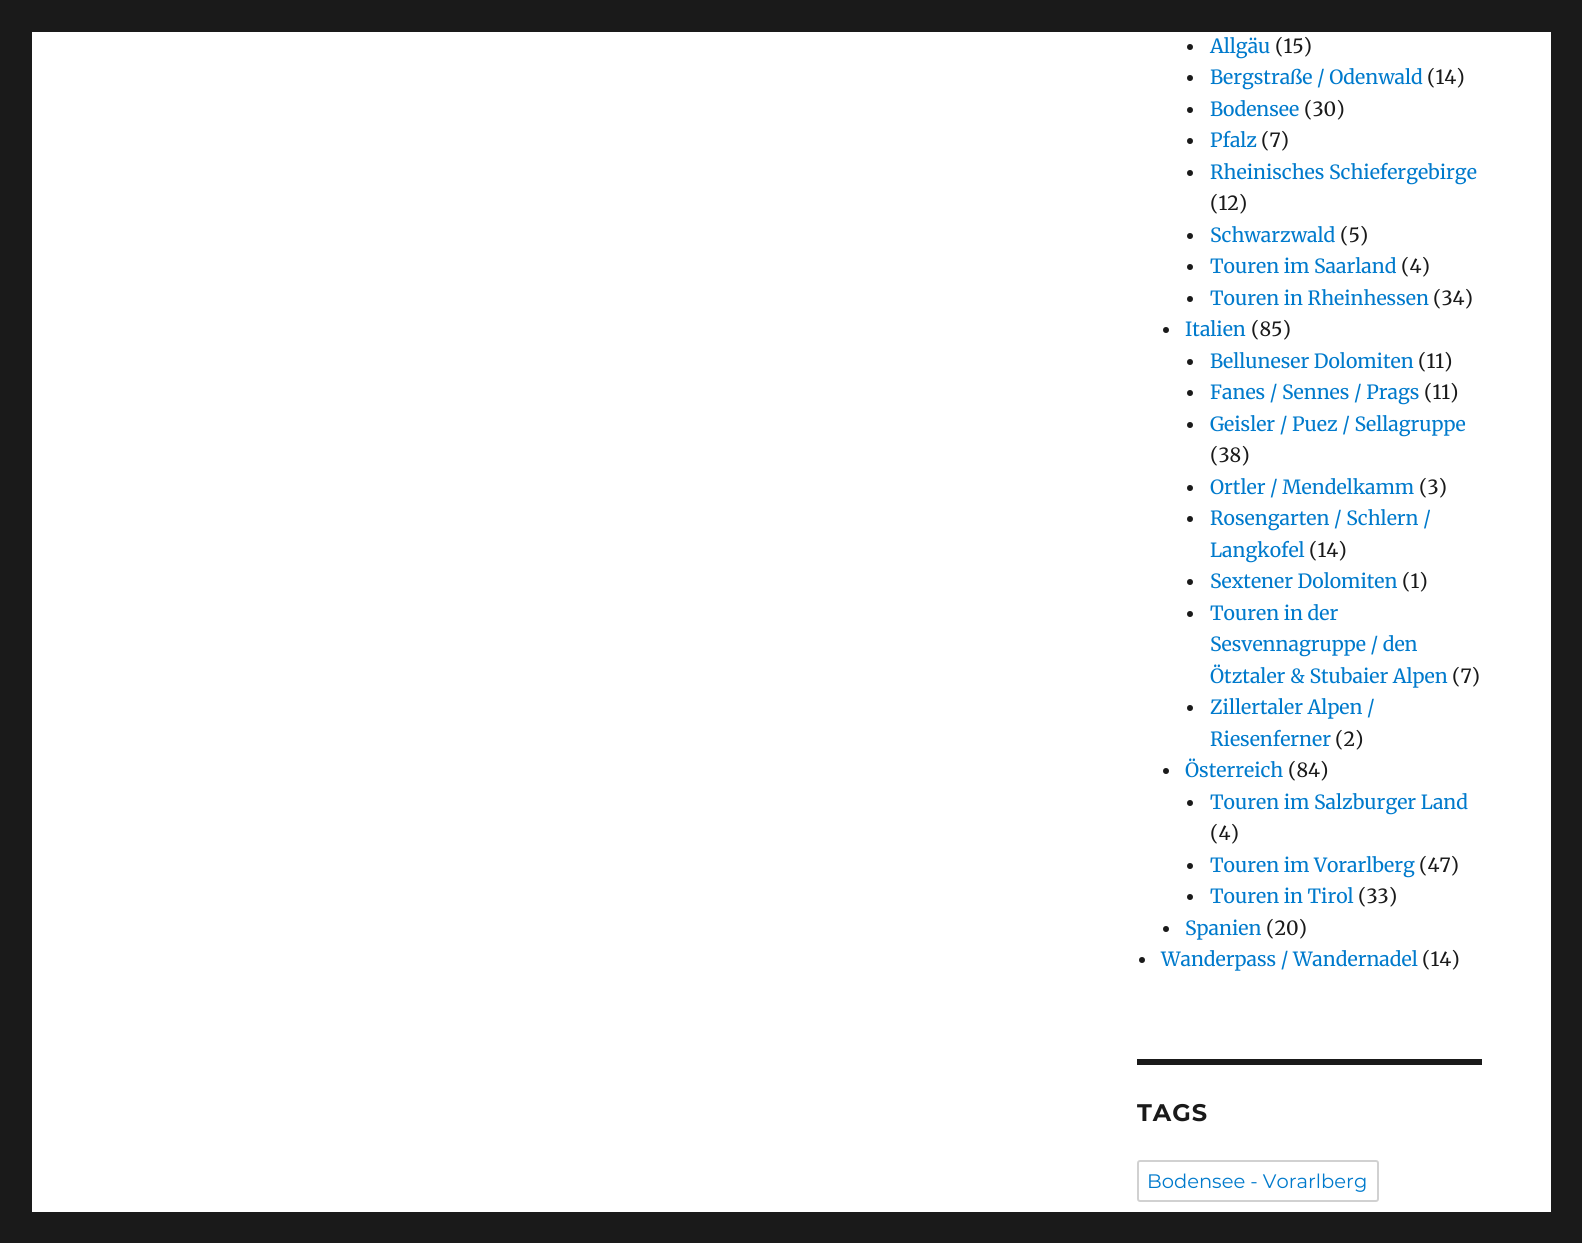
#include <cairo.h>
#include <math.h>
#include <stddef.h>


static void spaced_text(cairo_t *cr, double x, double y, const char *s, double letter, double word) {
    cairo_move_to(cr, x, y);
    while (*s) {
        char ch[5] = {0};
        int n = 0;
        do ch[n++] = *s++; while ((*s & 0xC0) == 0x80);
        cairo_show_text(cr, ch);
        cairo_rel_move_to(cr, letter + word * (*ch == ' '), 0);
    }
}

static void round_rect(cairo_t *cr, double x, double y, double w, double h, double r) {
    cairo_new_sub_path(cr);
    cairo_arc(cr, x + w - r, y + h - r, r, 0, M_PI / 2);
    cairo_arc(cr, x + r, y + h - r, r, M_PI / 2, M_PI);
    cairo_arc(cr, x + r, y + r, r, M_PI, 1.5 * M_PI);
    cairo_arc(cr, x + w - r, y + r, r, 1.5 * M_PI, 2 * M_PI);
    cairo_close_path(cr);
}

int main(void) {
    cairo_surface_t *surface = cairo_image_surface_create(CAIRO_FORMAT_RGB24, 1582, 1243);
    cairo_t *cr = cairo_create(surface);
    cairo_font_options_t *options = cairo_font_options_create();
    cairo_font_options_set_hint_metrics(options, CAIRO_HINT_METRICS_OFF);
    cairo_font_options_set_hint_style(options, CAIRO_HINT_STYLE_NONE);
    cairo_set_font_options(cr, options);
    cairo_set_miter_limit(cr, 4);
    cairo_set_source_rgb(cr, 0.102, 0.102, 0.102);
    cairo_paint(cr);
    cairo_set_source_rgb(cr, 1, 1, 1);
    cairo_rectangle(cr, 32, 32, 1519, 1180);
    cairo_fill(cr);
    cairo_set_source_rgb(cr, 0.102, 0.102, 0.102);
    cairo_arc(cr, 1190, 47, 3, 0, 2 * M_PI);
    cairo_fill(cr);
    cairo_select_font_face(cr, "Merriweather", CAIRO_FONT_SLANT_NORMAL, CAIRO_FONT_WEIGHT_NORMAL);
    cairo_set_font_size(cr, 19.5);
    cairo_set_source_rgb(cr, 0, 0.478, 0.8);
    cairo_move_to(cr, 1210, 53);
    cairo_show_text(cr, "Allgäu");
    cairo_set_source_rgb(cr, 0.102, 0.102, 0.102);
    cairo_move_to(cr, 1275, 53);
    cairo_show_text(cr, "(15)");
    cairo_new_path(cr);
    cairo_arc(cr, 1190, 78, 3, 0, 2 * M_PI);
    cairo_fill(cr);
    cairo_set_source_rgb(cr, 0, 0.478, 0.8);
    cairo_move_to(cr, 1210, 84);
    cairo_show_text(cr, "Bergstraße / Odenwald");
    cairo_set_source_rgb(cr, 0.102, 0.102, 0.102);
    cairo_move_to(cr, 1427, 84);
    cairo_show_text(cr, "(14)");
    cairo_new_path(cr);
    cairo_arc(cr, 1190, 110, 3, 0, 2 * M_PI);
    cairo_fill(cr);
    cairo_set_source_rgb(cr, 0, 0.478, 0.8);
    cairo_move_to(cr, 1210, 116);
    cairo_show_text(cr, "Bodensee");
    cairo_set_source_rgb(cr, 0.102, 0.102, 0.102);
    cairo_move_to(cr, 1304, 116);
    cairo_show_text(cr, "(30)");
    cairo_new_path(cr);
    cairo_arc(cr, 1190, 141, 3, 0, 2 * M_PI);
    cairo_fill(cr);
    cairo_set_source_rgb(cr, 0, 0.478, 0.8);
    cairo_move_to(cr, 1210, 147);
    cairo_show_text(cr, "Pfalz");
    cairo_set_source_rgb(cr, 0.102, 0.102, 0.102);
    cairo_move_to(cr, 1261, 147);
    cairo_show_text(cr, "(7)");
    cairo_new_path(cr);
    cairo_arc(cr, 1190, 173, 3, 0, 2 * M_PI);
    cairo_fill(cr);
    cairo_set_source_rgb(cr, 0, 0.478, 0.8);
    cairo_move_to(cr, 1210, 179);
    cairo_show_text(cr, "Rheinisches Schiefergebirge");
    cairo_set_source_rgb(cr, 0.102, 0.102, 0.102);
    cairo_move_to(cr, 1210, 210);
    cairo_show_text(cr, "(12)");
    cairo_new_path(cr);
    cairo_arc(cr, 1190, 236, 3, 0, 2 * M_PI);
    cairo_fill(cr);
    cairo_set_source_rgb(cr, 0, 0.478, 0.8);
    cairo_move_to(cr, 1210, 242);
    cairo_show_text(cr, "Schwarzwald");
    cairo_set_source_rgb(cr, 0.102, 0.102, 0.102);
    cairo_move_to(cr, 1340, 242);
    cairo_show_text(cr, "(5)");
    cairo_new_path(cr);
    cairo_arc(cr, 1190, 267, 3, 0, 2 * M_PI);
    cairo_fill(cr);
    cairo_set_source_rgb(cr, 0, 0.478, 0.8);
    cairo_move_to(cr, 1210, 273);
    cairo_show_text(cr, "Touren im Saarland");
    cairo_set_source_rgb(cr, 0.102, 0.102, 0.102);
    cairo_move_to(cr, 1401, 273);
    cairo_show_text(cr, "(4)");
    cairo_new_path(cr);
    cairo_arc(cr, 1190, 299, 3, 0, 2 * M_PI);
    cairo_fill(cr);
    cairo_set_source_rgb(cr, 0, 0.478, 0.8);
    cairo_move_to(cr, 1210, 305);
    cairo_show_text(cr, "Touren in Rheinhessen");
    cairo_set_source_rgb(cr, 0.102, 0.102, 0.102);
    cairo_move_to(cr, 1433, 305);
    cairo_show_text(cr, "(34)");
    cairo_new_path(cr);
    cairo_arc(cr, 1166, 330, 3, 0, 2 * M_PI);
    cairo_fill(cr);
    cairo_set_source_rgb(cr, 0, 0.478, 0.8);
    cairo_move_to(cr, 1185, 336);
    cairo_show_text(cr, "Italien");
    cairo_set_source_rgb(cr, 0.102, 0.102, 0.102);
    cairo_move_to(cr, 1251, 336);
    cairo_show_text(cr, "(85)");
    cairo_new_path(cr);
    cairo_arc(cr, 1190, 362, 3, 0, 2 * M_PI);
    cairo_fill(cr);
    cairo_set_source_rgb(cr, 0, 0.478, 0.8);
    cairo_move_to(cr, 1210, 368);
    cairo_show_text(cr, "Belluneser Dolomiten");
    cairo_set_source_rgb(cr, 0.102, 0.102, 0.102);
    cairo_move_to(cr, 1418, 368);
    cairo_show_text(cr, "(11)");
    cairo_new_path(cr);
    cairo_arc(cr, 1190, 393, 3, 0, 2 * M_PI);
    cairo_fill(cr);
    cairo_set_source_rgb(cr, 0, 0.478, 0.8);
    cairo_move_to(cr, 1210, 399);
    cairo_show_text(cr, "Fanes / Sennes / Prags");
    cairo_set_source_rgb(cr, 0.102, 0.102, 0.102);
    cairo_move_to(cr, 1424, 399);
    cairo_show_text(cr, "(11)");
    cairo_new_path(cr);
    cairo_arc(cr, 1190, 425, 3, 0, 2 * M_PI);
    cairo_fill(cr);
    cairo_set_source_rgb(cr, 0, 0.478, 0.8);
    cairo_move_to(cr, 1210, 431);
    cairo_show_text(cr, "Geisler / Puez / Sellagruppe");
    cairo_set_source_rgb(cr, 0.102, 0.102, 0.102);
    cairo_move_to(cr, 1210, 462);
    cairo_show_text(cr, "(38)");
    cairo_new_path(cr);
    cairo_arc(cr, 1190, 488, 3, 0, 2 * M_PI);
    cairo_fill(cr);
    cairo_set_source_rgb(cr, 0, 0.478, 0.8);
    cairo_move_to(cr, 1210, 494);
    cairo_show_text(cr, "Ortler / Mendelkamm");
    cairo_set_source_rgb(cr, 0.102, 0.102, 0.102);
    cairo_move_to(cr, 1419, 494);
    cairo_show_text(cr, "(3)");
    cairo_new_path(cr);
    cairo_arc(cr, 1190, 519, 3, 0, 2 * M_PI);
    cairo_fill(cr);
    cairo_set_source_rgb(cr, 0, 0.478, 0.8);
    cairo_move_to(cr, 1210, 525);
    cairo_show_text(cr, "Rosengarten / Schlern /");
    cairo_move_to(cr, 1210, 557);
    cairo_show_text(cr, "Langkofel");
    cairo_set_source_rgb(cr, 0.102, 0.102, 0.102);
    cairo_move_to(cr, 1309, 557);
    cairo_show_text(cr, "(14)");
    cairo_new_path(cr);
    cairo_arc(cr, 1190, 582, 3, 0, 2 * M_PI);
    cairo_fill(cr);
    cairo_set_source_rgb(cr, 0, 0.478, 0.8);
    cairo_move_to(cr, 1210, 588);
    cairo_show_text(cr, "Sextener Dolomiten");
    cairo_set_source_rgb(cr, 0.102, 0.102, 0.102);
    cairo_move_to(cr, 1402, 588);
    cairo_show_text(cr, "(1)");
    cairo_new_path(cr);
    cairo_arc(cr, 1190, 614, 3, 0, 2 * M_PI);
    cairo_fill(cr);
    cairo_set_source_rgb(cr, 0, 0.478, 0.8);
    cairo_move_to(cr, 1210, 620);
    cairo_show_text(cr, "Touren in der");
    cairo_move_to(cr, 1210, 651);
    cairo_show_text(cr, "Sesvennagruppe / den");
    cairo_move_to(cr, 1210, 683);
    cairo_show_text(cr, "Ötztaler & Stubaier Alpen");
    cairo_set_source_rgb(cr, 0.102, 0.102, 0.102);
    cairo_move_to(cr, 1452, 683);
    cairo_show_text(cr, "(7)");
    cairo_new_path(cr);
    cairo_arc(cr, 1190, 708, 3, 0, 2 * M_PI);
    cairo_fill(cr);
    cairo_set_source_rgb(cr, 0, 0.478, 0.8);
    cairo_move_to(cr, 1210, 714);
    cairo_show_text(cr, "Zillertaler Alpen /");
    cairo_move_to(cr, 1210, 746);
    cairo_show_text(cr, "Riesenferner");
    cairo_set_source_rgb(cr, 0.102, 0.102, 0.102);
    cairo_move_to(cr, 1335, 746);
    cairo_show_text(cr, "(2)");
    cairo_new_path(cr);
    cairo_arc(cr, 1166, 771, 3, 0, 2 * M_PI);
    cairo_fill(cr);
    cairo_set_source_rgb(cr, 0, 0.478, 0.8);
    cairo_move_to(cr, 1185, 777);
    cairo_show_text(cr, "Österreich");
    cairo_set_source_rgb(cr, 0.102, 0.102, 0.102);
    cairo_move_to(cr, 1288, 777);
    cairo_show_text(cr, "(84)");
    cairo_new_path(cr);
    cairo_arc(cr, 1190, 803, 3, 0, 2 * M_PI);
    cairo_fill(cr);
    cairo_set_source_rgb(cr, 0, 0.478, 0.8);
    cairo_move_to(cr, 1210, 809);
    cairo_show_text(cr, "Touren im Salzburger Land");
    cairo_set_source_rgb(cr, 0.102, 0.102, 0.102);
    cairo_move_to(cr, 1210, 840);
    cairo_show_text(cr, "(4)");
    cairo_new_path(cr);
    cairo_arc(cr, 1190, 866, 3, 0, 2 * M_PI);
    cairo_fill(cr);
    cairo_set_source_rgb(cr, 0, 0.478, 0.8);
    cairo_move_to(cr, 1210, 872);
    cairo_show_text(cr, "Touren im Vorarlberg");
    cairo_set_source_rgb(cr, 0.102, 0.102, 0.102);
    cairo_move_to(cr, 1419, 872);
    cairo_show_text(cr, "(47)");
    cairo_new_path(cr);
    cairo_arc(cr, 1190, 897, 3, 0, 2 * M_PI);
    cairo_fill(cr);
    cairo_set_source_rgb(cr, 0, 0.478, 0.8);
    cairo_move_to(cr, 1210, 903);
    cairo_show_text(cr, "Touren in Tirol");
    cairo_set_source_rgb(cr, 0.102, 0.102, 0.102);
    cairo_move_to(cr, 1358, 903);
    cairo_show_text(cr, "(33)");
    cairo_new_path(cr);
    cairo_arc(cr, 1166, 929, 3, 0, 2 * M_PI);
    cairo_fill(cr);
    cairo_set_source_rgb(cr, 0, 0.478, 0.8);
    cairo_move_to(cr, 1185, 935);
    cairo_show_text(cr, "Spanien");
    cairo_set_source_rgb(cr, 0.102, 0.102, 0.102);
    cairo_move_to(cr, 1266, 935);
    cairo_show_text(cr, "(20)");
    cairo_new_path(cr);
    cairo_arc(cr, 1142, 960, 3, 0, 2 * M_PI);
    cairo_fill(cr);
    cairo_set_source_rgb(cr, 0, 0.478, 0.8);
    cairo_move_to(cr, 1161, 966);
    cairo_show_text(cr, "Wanderpass / Wandernadel");
    cairo_set_source_rgb(cr, 0.102, 0.102, 0.102);
    cairo_move_to(cr, 1422, 966);
    cairo_show_text(cr, "(14)");
    cairo_rectangle(cr, 1137, 1059, 345, 6);
    cairo_fill(cr);
    cairo_select_font_face(cr, "Montserrat", CAIRO_FONT_SLANT_NORMAL, CAIRO_FONT_WEIGHT_BOLD);
    cairo_set_font_size(cr, 24);
    spaced_text(cr, 1137, 1121, "TAGS", 1, 0);
    round_rect(cr, 1138, 1161, 240, 40, 2);
    cairo_set_source_rgb(cr, 0.82, 0.82, 0.82);
    cairo_stroke(cr);
    cairo_select_font_face(cr, "Montserrat", CAIRO_FONT_SLANT_NORMAL, CAIRO_FONT_WEIGHT_NORMAL);
    cairo_set_font_size(cr, 19.5);
    cairo_set_source_rgb(cr, 0, 0.478, 0.8);
    cairo_move_to(cr, 1147, 1188);
    cairo_show_text(cr, "Bodensee - Vorarlberg");
    cairo_surface_write_to_png(surface, "page.png");
    cairo_font_options_destroy(options);
    cairo_destroy(cr);
    cairo_surface_destroy(surface);
    return 0;
}
